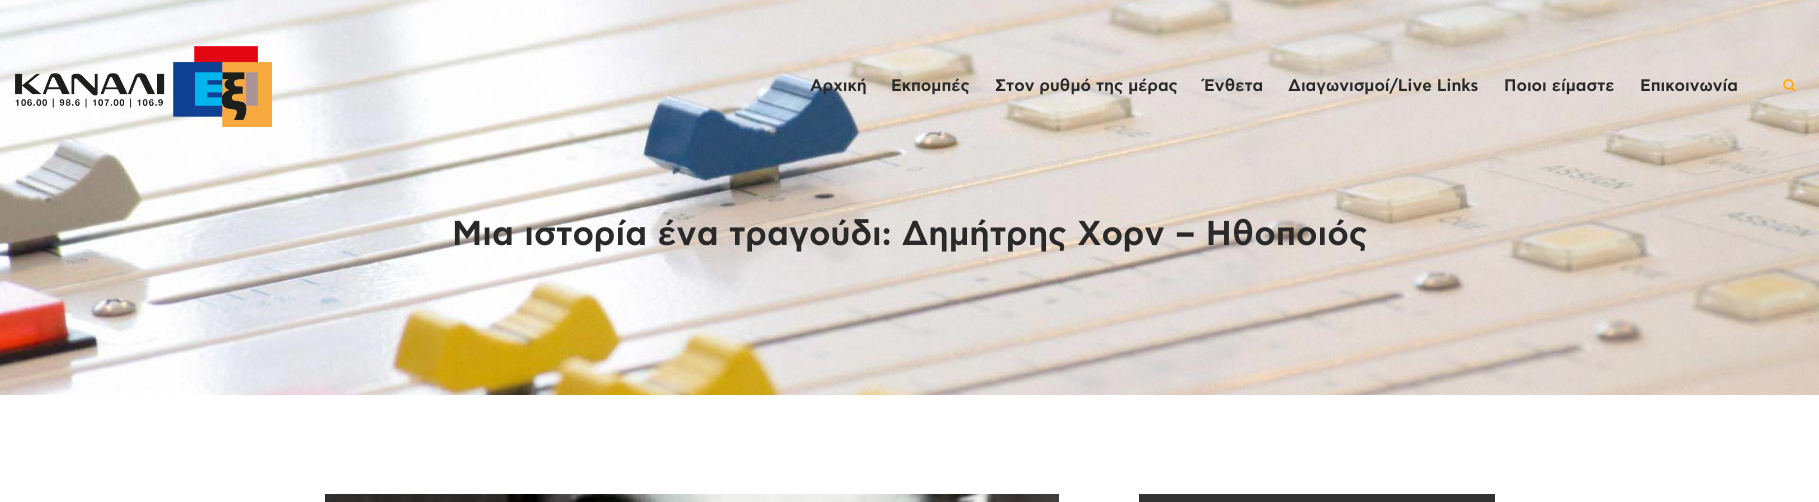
#include <cairo.h>
#include <math.h>
#include <stddef.h>


static void picture(cairo_t *cr, const char *path, double x, double y, double w, double h) {
    cairo_surface_t *image = cairo_image_surface_create_from_png(path);
    cairo_save(cr);
    cairo_set_source_surface(cr, image, x, y);
    cairo_rectangle(cr, x, y, w, h);
    cairo_fill(cr);
    cairo_restore(cr);
    cairo_surface_destroy(image);
}

int main(void) {
    cairo_surface_t *surface = cairo_image_surface_create(CAIRO_FORMAT_RGB24, 1819, 502);
    cairo_t *cr = cairo_create(surface);
    cairo_font_options_t *options = cairo_font_options_create();
    cairo_font_options_set_hint_metrics(options, CAIRO_HINT_METRICS_OFF);
    cairo_font_options_set_hint_style(options, CAIRO_HINT_STYLE_NONE);
    cairo_set_font_options(cr, options);
    cairo_set_miter_limit(cr, 4);
    cairo_set_source_rgb(cr, 1, 1, 1);
    cairo_paint(cr);
    picture(cr, "img1.png", 0, 0, 1819, 395);
    picture(cr, "img2.png", 15, 46, 257, 81);
    cairo_select_font_face(cr, "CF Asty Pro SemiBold", CAIRO_FONT_SLANT_NORMAL, CAIRO_FONT_WEIGHT_NORMAL);
    cairo_set_font_size(cr, 16.75);
    cairo_set_source_rgb(cr, 0.161, 0.161, 0.161);
    cairo_move_to(cr, 810, 91);
    cairo_show_text(cr, "Αρχική");
    cairo_move_to(cr, 891, 91);
    cairo_show_text(cr, "Εκπομπές");
    cairo_move_to(cr, 995, 91);
    cairo_show_text(cr, "Στον ρυθμό της μέρας");
    cairo_move_to(cr, 1204, 91);
    cairo_show_text(cr, "Ένθετα");
    cairo_move_to(cr, 1288, 91);
    cairo_show_text(cr, "Διαγωνισμοί/Live Links");
    cairo_move_to(cr, 1504, 91);
    cairo_show_text(cr, "Ποιοι είμαστε");
    cairo_move_to(cr, 1640, 91);
    cairo_show_text(cr, "Επικοινωνία");
    picture(cr, "img3.png", 1783, 79, 13, 13);
    cairo_set_font_size(cr, 34.45);
    cairo_move_to(cr, 452, 245);
    cairo_show_text(cr, "Μια ιστορία ένα τραγούδι: Δημήτρης Χορν – Ηθοποιός");
    picture(cr, "img4.png", 325, 494, 734, 8);
    cairo_set_source_rgb(cr, 0.2, 0.2, 0.2);
    cairo_rectangle(cr, 1139, 494, 356, 8);
    cairo_fill(cr);
    cairo_surface_write_to_png(surface, "page.png");
    cairo_font_options_destroy(options);
    cairo_destroy(cr);
    cairo_surface_destroy(surface);
    return 0;
}
